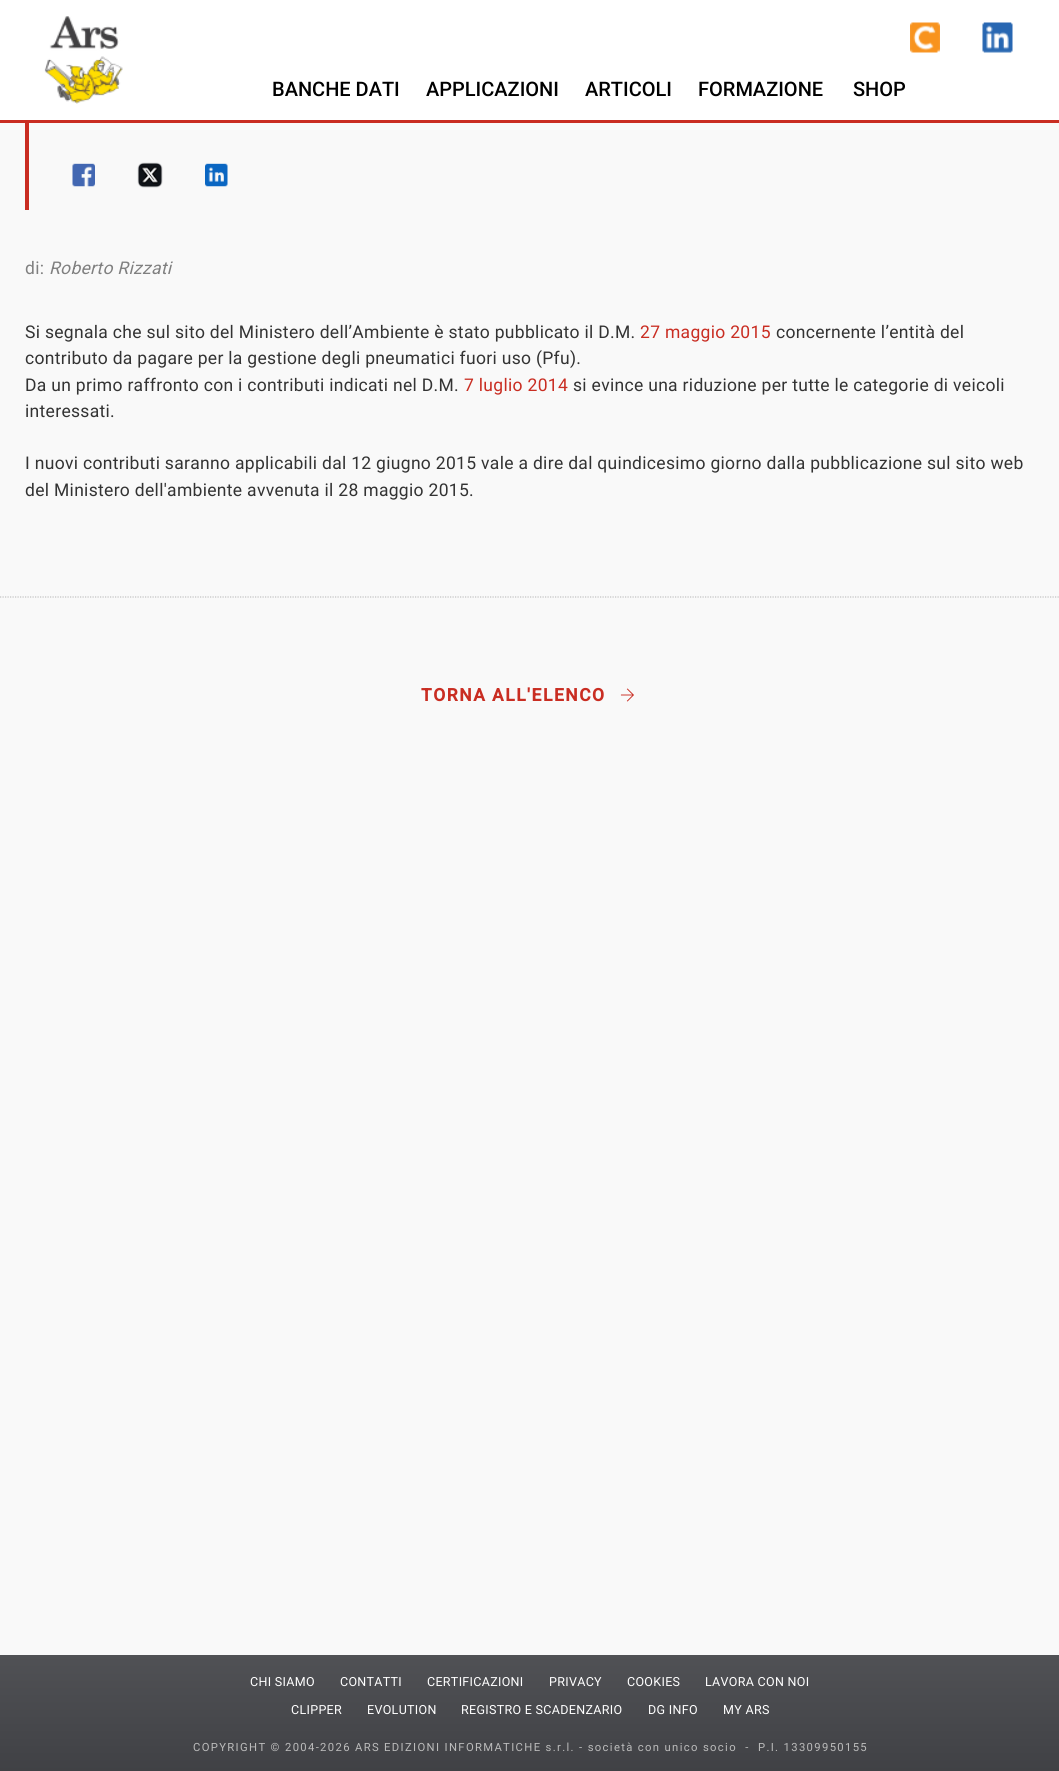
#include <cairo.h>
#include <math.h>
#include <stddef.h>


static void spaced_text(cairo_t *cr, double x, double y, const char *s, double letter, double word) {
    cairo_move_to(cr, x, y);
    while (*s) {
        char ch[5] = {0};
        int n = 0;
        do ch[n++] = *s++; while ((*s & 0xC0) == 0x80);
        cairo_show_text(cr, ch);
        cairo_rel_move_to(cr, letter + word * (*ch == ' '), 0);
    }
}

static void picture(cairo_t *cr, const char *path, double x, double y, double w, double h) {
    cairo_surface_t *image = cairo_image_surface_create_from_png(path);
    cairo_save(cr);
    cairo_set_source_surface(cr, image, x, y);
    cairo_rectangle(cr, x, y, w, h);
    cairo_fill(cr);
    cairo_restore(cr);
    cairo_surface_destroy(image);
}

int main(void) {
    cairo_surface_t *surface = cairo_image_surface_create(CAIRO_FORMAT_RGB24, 1059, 1771);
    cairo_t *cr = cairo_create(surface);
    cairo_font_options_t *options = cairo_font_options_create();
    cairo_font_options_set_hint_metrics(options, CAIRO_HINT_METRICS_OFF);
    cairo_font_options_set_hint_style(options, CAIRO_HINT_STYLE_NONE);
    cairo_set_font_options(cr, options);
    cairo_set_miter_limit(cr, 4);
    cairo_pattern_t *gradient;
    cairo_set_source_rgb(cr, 0.976, 0.976, 0.976);
    cairo_paint(cr);
    cairo_set_source_rgb(cr, 1, 1, 1);
    cairo_rectangle(cr, 0, 0, 1059, 120);
    cairo_fill(cr);
    cairo_set_source_rgb(cr, 0.788, 0.176, 0.133);
    cairo_rectangle(cr, 0, 120, 1059, 3);
    cairo_fill(cr);
    picture(cr, "img1.png", 44, 16, 79, 88);
    picture(cr, "img2.png", 910, 22, 30, 31);
    picture(cr, "img3.png", 982, 22, 31, 31);
    cairo_select_font_face(cr, "Roboto Medium", CAIRO_FONT_SLANT_NORMAL, CAIRO_FONT_WEIGHT_NORMAL);
    cairo_set_font_size(cr, 20);
    cairo_set_source_rgb(cr, 0, 0, 0);
    cairo_move_to(cr, 272, 96);
    cairo_show_text(cr, "BANCHE DATI");
    cairo_move_to(cr, 426, 96);
    cairo_show_text(cr, "APPLICAZIONI");
    cairo_move_to(cr, 585, 96);
    cairo_show_text(cr, "ARTICOLI");
    cairo_move_to(cr, 698, 96);
    cairo_show_text(cr, "FORMAZIONE");
    cairo_move_to(cr, 853, 96);
    cairo_show_text(cr, "SHOP");
    cairo_set_source_rgb(cr, 0.788, 0.176, 0.133);
    cairo_rectangle(cr, 25, 123, 4, 87);
    cairo_fill(cr);
    picture(cr, "img4.png", 72, 163, 23, 24);
    picture(cr, "img5.png", 137, 162, 26, 26);
    picture(cr, "img6.png", 205, 163, 23, 24);
    cairo_new_path(cr);
    cairo_move_to(cr, 0, 597);
    cairo_line_to(cr, 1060, 597);
    cairo_set_source_rgb(cr, 0.753, 0.753, 0.753);
    cairo_set_line_width(cr, 1.2);
    cairo_set_dash(cr, (double[]){1.25, 1.25}, 2, 0);
    cairo_stroke(cr);
    cairo_select_font_face(cr, "Roboto", CAIRO_FONT_SLANT_NORMAL, CAIRO_FONT_WEIGHT_NORMAL);
    cairo_set_font_size(cr, 17.5);
    cairo_set_source_rgb(cr, 0.502, 0.502, 0.502);
    spaced_text(cr, 25, 274, "di:", 0.31, 0);
    cairo_select_font_face(cr, "Roboto", CAIRO_FONT_SLANT_ITALIC, CAIRO_FONT_WEIGHT_NORMAL);
    spaced_text(cr, 49, 274, "Roberto Rizzati", 0.31, 0);
    cairo_select_font_face(cr, "Roboto", CAIRO_FONT_SLANT_NORMAL, CAIRO_FONT_WEIGHT_NORMAL);
    cairo_set_source_rgb(cr, 0.2, 0.2, 0.2);
    spaced_text(cr, 25, 338, "Si segnala che sul sito del Ministero dell’Ambiente è stato pubblicato il D.M.", 0.31, 0);
    cairo_set_source_rgb(cr, 0.788, 0.176, 0.133);
    spaced_text(cr, 640, 338, "27 maggio 2015", 0.31, 0);
    cairo_set_source_rgb(cr, 0.2, 0.2, 0.2);
    spaced_text(cr, 776, 338, "concernente l’entità del", 0.31, 0);
    spaced_text(cr, 25, 364, "contributo da pagare per la gestione degli pneumatici fuori uso (Pfu).", 0.31, 0);
    spaced_text(cr, 25, 391, "Da un primo raffronto con i contributi indicati nel D.M.", 0.31, 0);
    cairo_set_source_rgb(cr, 0.788, 0.176, 0.133);
    spaced_text(cr, 464, 391, "7 luglio 2014", 0.31, 0);
    cairo_set_source_rgb(cr, 0.2, 0.2, 0.2);
    spaced_text(cr, 573, 391, "si evince una riduzione per tutte le categorie di veicoli", 0.31, 0);
    spaced_text(cr, 25, 417, "interessati.", 0.31, 0);
    spaced_text(cr, 25, 469, "I nuovi contributi saranno applicabili dal 12 giugno 2015 vale a dire dal quindicesimo giorno dalla pubblicazione sul sito web", 0.31, 0);
    spaced_text(cr, 25, 496, "del Ministero dell'ambiente avvenuta il 28 maggio 2015.", 0.31, 0);
    cairo_select_font_face(cr, "Roboto", CAIRO_FONT_SLANT_NORMAL, CAIRO_FONT_WEIGHT_BOLD);
    cairo_set_source_rgb(cr, 0.788, 0.176, 0.133);
    spaced_text(cr, 421, 701, "TORNA ALL'ELENCO", 1.5, 0);
    picture(cr, "img7.png", 620, 688, 14, 14);
    gradient = cairo_pattern_create_linear(530, 1655, 530, 1771);
    cairo_pattern_add_color_stop_rgba(gradient, 0, 0.314, 0.318, 0.333, 1);
    cairo_pattern_add_color_stop_rgba(gradient, 1, 0.251, 0.255, 0.271, 1);
    cairo_set_source(cr, gradient);
    cairo_pattern_destroy(gradient);
    cairo_rectangle(cr, 0, 1655, 1059, 116);
    cairo_fill(cr);
    cairo_select_font_face(cr, "Roboto", CAIRO_FONT_SLANT_NORMAL, CAIRO_FONT_WEIGHT_NORMAL);
    cairo_set_font_size(cr, 12.5);
    cairo_set_source_rgb(cr, 1, 1, 1);
    spaced_text(cr, 250, 1686, "CHI SIAMO", 0.31, 0);
    spaced_text(cr, 340, 1686, "CONTATTI", 0.31, 0);
    spaced_text(cr, 427, 1686, "CERTIFICAZIONI", 0.31, 0);
    spaced_text(cr, 549, 1686, "PRIVACY", 0.31, 0);
    spaced_text(cr, 627, 1686, "COOKIES", 0.31, 0);
    spaced_text(cr, 705, 1686, "LAVORA CON NOI", 0.31, 0);
    spaced_text(cr, 291, 1714, "CLIPPER", 0.31, 0);
    spaced_text(cr, 367, 1714, "EVOLUTION", 0.31, 0);
    spaced_text(cr, 461, 1714, "REGISTRO E SCADENZARIO", 0.31, 0);
    spaced_text(cr, 648, 1714, "DG INFO", 0.31, 0);
    spaced_text(cr, 723, 1714, "MY ARS", 0.31, 0);
    cairo_set_font_size(cr, 11.25);
    cairo_set_source_rgb(cr, 0.733, 0.733, 0.733);
    spaced_text(cr, 193, 1751, "COPYRIGHT © 2004-2026 ARS EDIZIONI INFORMATICHE s.r.l. - società con unico socio  -  P.I. 13309950155", 1.35, 0);
    cairo_surface_write_to_png(surface, "page.png");
    cairo_font_options_destroy(options);
    cairo_destroy(cr);
    cairo_surface_destroy(surface);
    return 0;
}
